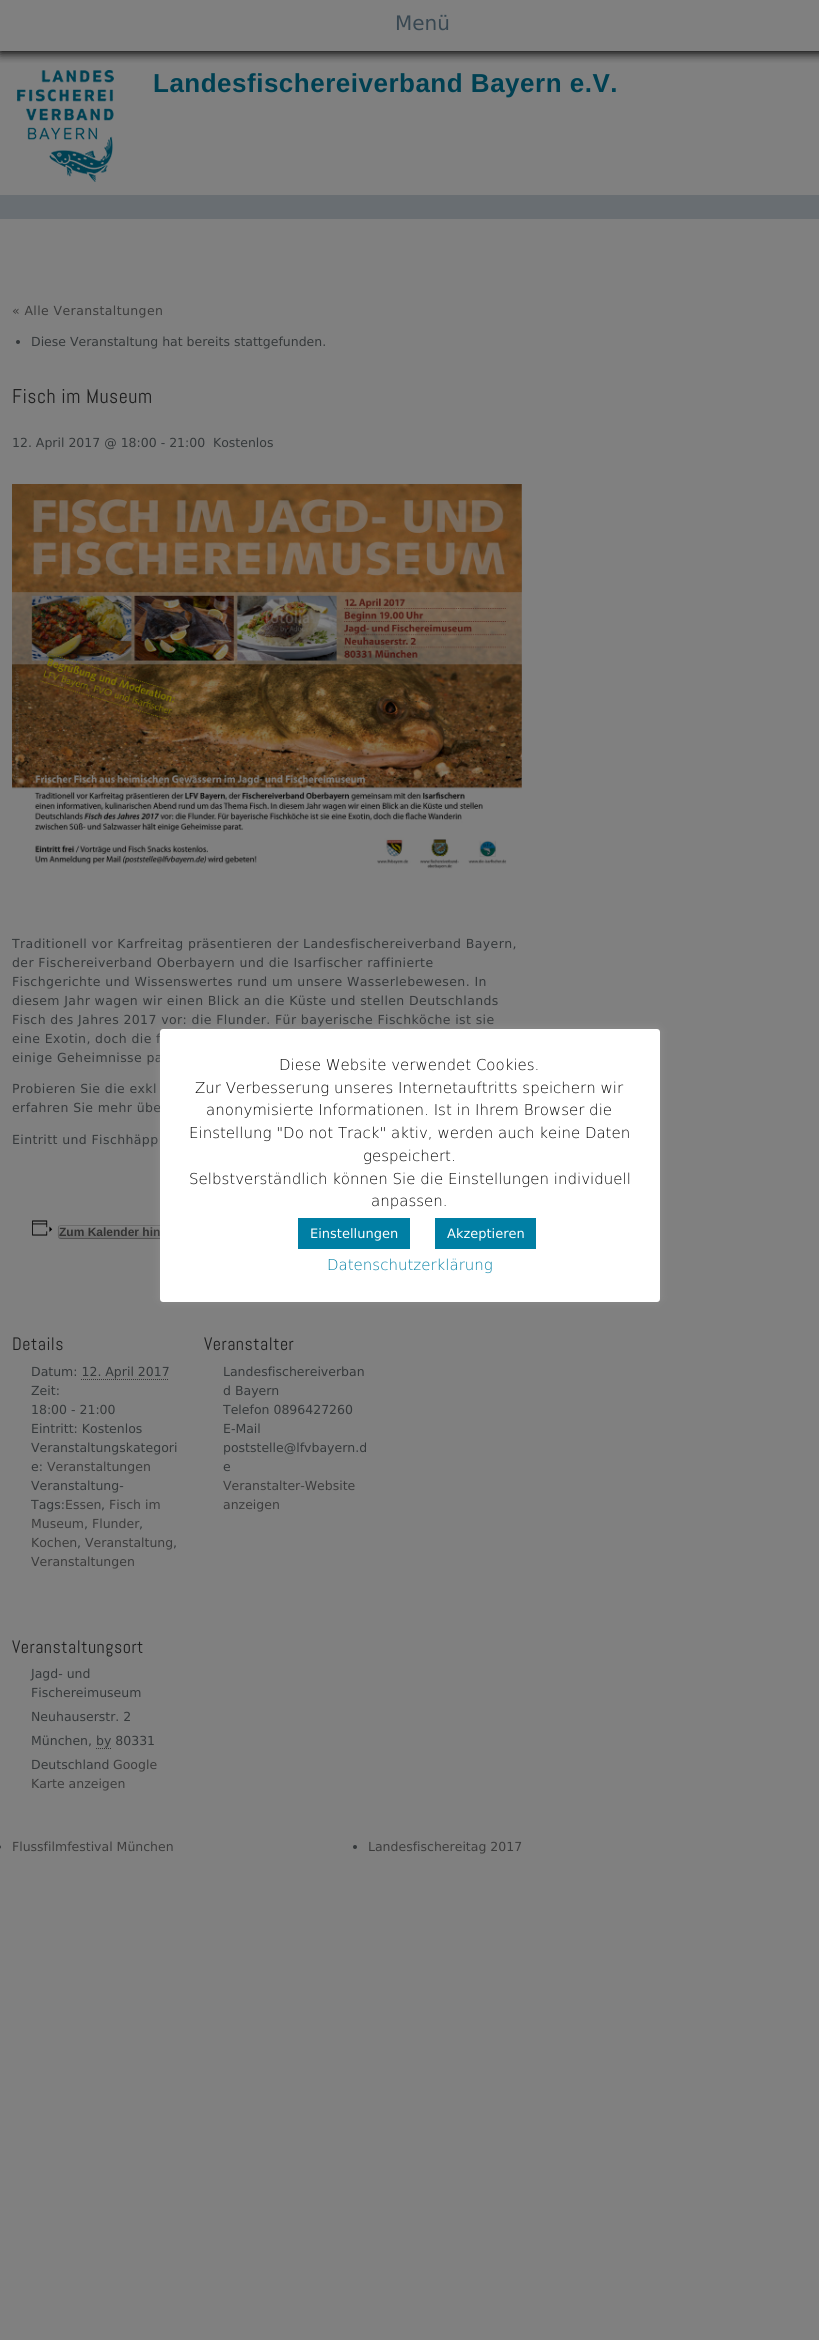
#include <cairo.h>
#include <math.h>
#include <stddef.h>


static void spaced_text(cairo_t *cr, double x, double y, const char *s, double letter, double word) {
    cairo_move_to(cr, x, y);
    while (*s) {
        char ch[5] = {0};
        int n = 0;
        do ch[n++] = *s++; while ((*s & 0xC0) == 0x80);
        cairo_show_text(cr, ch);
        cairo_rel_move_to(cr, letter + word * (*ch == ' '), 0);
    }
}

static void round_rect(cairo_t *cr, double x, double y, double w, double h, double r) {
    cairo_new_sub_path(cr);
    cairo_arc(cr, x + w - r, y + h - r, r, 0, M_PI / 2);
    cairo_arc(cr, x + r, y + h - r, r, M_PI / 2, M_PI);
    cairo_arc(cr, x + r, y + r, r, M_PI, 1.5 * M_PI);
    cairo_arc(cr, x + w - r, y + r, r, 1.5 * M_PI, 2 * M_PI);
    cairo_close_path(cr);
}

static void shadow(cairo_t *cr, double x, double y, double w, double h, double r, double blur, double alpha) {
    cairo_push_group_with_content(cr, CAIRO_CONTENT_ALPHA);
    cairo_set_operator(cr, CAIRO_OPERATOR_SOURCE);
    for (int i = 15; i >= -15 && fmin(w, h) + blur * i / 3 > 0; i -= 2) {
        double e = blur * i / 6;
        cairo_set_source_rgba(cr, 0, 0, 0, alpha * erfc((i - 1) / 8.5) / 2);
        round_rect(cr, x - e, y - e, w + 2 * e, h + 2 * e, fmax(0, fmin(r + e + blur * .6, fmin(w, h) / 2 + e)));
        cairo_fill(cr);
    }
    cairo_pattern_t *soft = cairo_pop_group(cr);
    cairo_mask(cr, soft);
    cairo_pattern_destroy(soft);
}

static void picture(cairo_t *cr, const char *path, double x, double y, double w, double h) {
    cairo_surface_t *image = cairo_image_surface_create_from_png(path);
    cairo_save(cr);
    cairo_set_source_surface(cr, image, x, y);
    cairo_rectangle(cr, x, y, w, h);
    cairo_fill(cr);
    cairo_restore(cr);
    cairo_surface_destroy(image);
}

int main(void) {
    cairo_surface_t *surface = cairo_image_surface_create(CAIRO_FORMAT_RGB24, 819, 2340);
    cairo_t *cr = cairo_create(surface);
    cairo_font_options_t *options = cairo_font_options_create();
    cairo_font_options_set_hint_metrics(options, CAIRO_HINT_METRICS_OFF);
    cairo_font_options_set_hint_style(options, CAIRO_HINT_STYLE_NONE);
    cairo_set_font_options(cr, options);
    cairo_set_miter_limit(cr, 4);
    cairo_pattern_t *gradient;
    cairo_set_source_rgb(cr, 0.502, 0.502, 0.502);
    cairo_paint(cr);
    cairo_save(cr);
    cairo_rectangle(cr, 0, 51, 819, 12);
    cairo_clip(cr);
    cairo_set_source_rgb(cr, 0, 0, 0);
    shadow(cr, 0, 2, 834, 51, 0, 5, 1);
    cairo_restore(cr);
    cairo_select_font_face(cr, "DejaVu Sans", CAIRO_FONT_SLANT_NORMAL, CAIRO_FONT_WEIGHT_NORMAL);
    cairo_set_font_size(cr, 20);
    cairo_set_source_rgb(cr, 0.22, 0.278, 0.318);
    cairo_move_to(cr, 395, 30);
    cairo_show_text(cr, "Menü");
    picture(cr, "img1.png", 17, 70, 97, 112);
    cairo_select_font_face(cr, "Liberation Sans", CAIRO_FONT_SLANT_NORMAL, CAIRO_FONT_WEIGHT_BOLD);
    cairo_set_font_size(cr, 26);
    cairo_set_source_rgb(cr, 0, 0.251, 0.322);
    spaced_text(cr, 153, 92, "Landesfischereiverband Bayern e.V.", 0.5, 0);
    cairo_set_source_rgb(cr, 0.412, 0.431, 0.447);
    cairo_rectangle(cr, 0, 195, 819, 24);
    cairo_fill(cr);
    cairo_select_font_face(cr, "DejaVu Sans", CAIRO_FONT_SLANT_NORMAL, CAIRO_FONT_WEIGHT_NORMAL);
    cairo_set_font_size(cr, 12.5);
    cairo_set_source_rgb(cr, 0.235, 0.235, 0.235);
    spaced_text(cr, 12, 315, "« Alle Veranstaltungen", 0.4, 0);
    cairo_set_source_rgb(cr, 0.204, 0.22, 0.227);
    cairo_new_path(cr);
    cairo_arc(cr, 18, 342, 2, 0, 2 * M_PI);
    cairo_fill(cr);
    cairo_move_to(cr, 31, 346);
    cairo_show_text(cr, "Diese Veranstaltung hat bereits stattgefunden.");
    cairo_select_font_face(cr, "Abel", CAIRO_FONT_SLANT_NORMAL, CAIRO_FONT_WEIGHT_NORMAL);
    cairo_set_font_size(cr, 20);
    cairo_set_source_rgb(cr, 0.118, 0.118, 0.118);
    spaced_text(cr, 12, 403, "Fisch im Museum", 0.5, 0);
    cairo_select_font_face(cr, "DejaVu Sans", CAIRO_FONT_SLANT_NORMAL, CAIRO_FONT_WEIGHT_NORMAL);
    cairo_set_font_size(cr, 12.5);
    cairo_set_source_rgb(cr, 0.204, 0.22, 0.227);
    cairo_move_to(cr, 12, 447);
    cairo_show_text(cr, "12. April 2017 @ 18:00 - 21:00");
    cairo_move_to(cr, 213, 447);
    cairo_show_text(cr, "Kostenlos");
    picture(cr, "img2.png", 12, 484, 510, 385);
    spaced_text(cr, 12, 948, "Traditionell vor Karfreitag präsentieren der Landesfischereiverband Bayern,", 0.4, 0);
    spaced_text(cr, 12, 967, "der Fischereiverband Oberbayern und die Isarfischer raffinierte", 0.4, 0);
    spaced_text(cr, 12, 986, "Fischgerichte und Wissenswertes rund um unsere Wasserlebewesen. In", 0.4, 0);
    spaced_text(cr, 12, 1005, "diesem Jahr wagen wir einen Blick an die Küste und stellen Deutschlands", 0.4, 0);
    spaced_text(cr, 12, 1024, "Fisch des Jahres 2017 vor: die Flunder. Für bayerische Fischköche ist sie", 0.4, 0);
    spaced_text(cr, 12, 1043, "eine Exotin, doch die f", 0.4, 0);
    spaced_text(cr, 12, 1062, "einige Geheimnisse pa", 0.4, 0);
    spaced_text(cr, 12, 1093, "Probieren Sie die exkl", 0.4, 0);
    spaced_text(cr, 12, 1112, "erfahren Sie mehr übe", 0.4, 0);
    spaced_text(cr, 12, 1144, "Eintritt und Fischhäpp", 0.4, 0);
    picture(cr, "img3.png", 32, 1220, 21, 16);
    cairo_save(cr);
    round_rect(cr, 58, 1225, 149, 14, 3);
    cairo_clip(cr);
    gradient = cairo_pattern_create_linear(59, 1238, 59, 1226);
    cairo_pattern_add_color_stop_rgba(gradient, 0, 0.439, 0.439, 0.439, 1);
    cairo_pattern_add_color_stop_rgba(gradient, 1, 0.502, 0.502, 0.502, 1);
    cairo_set_source(cr, gradient);
    cairo_pattern_destroy(gradient);
    cairo_rectangle(cr, 58, 1226, 102, 12);
    cairo_fill(cr);
    cairo_restore(cr);
    cairo_new_path(cr);
    cairo_move_to(cr, 59, 1226);
    cairo_line_to(cr, 61, 1225.5);
    cairo_line_to(cr, 204, 1225.5);
    cairo_line_to(cr, 206, 1226);
    cairo_set_source_rgb(cr, 0.412, 0.412, 0.412);
    cairo_set_line_width(cr, 1);
    cairo_stroke(cr);
    cairo_new_path(cr);
    cairo_move_to(cr, 206, 1238);
    cairo_line_to(cr, 204, 1238.5);
    cairo_line_to(cr, 61, 1238.5);
    cairo_line_to(cr, 59, 1238);
    cairo_set_source_rgb(cr, 0.314, 0.314, 0.314);
    cairo_stroke(cr);
    cairo_new_path(cr);
    cairo_move_to(cr, 59, 1238);
    cairo_curve_to(cr, 58, 1236.5, 58.5, 1233.5, 58.5, 1232);
    cairo_curve_to(cr, 58.5, 1230.5, 58, 1227.5, 59, 1226);
    cairo_set_source_rgb(cr, 0.384, 0.384, 0.384);
    cairo_stroke(cr);
    cairo_select_font_face(cr, "Liberation Sans", CAIRO_FONT_SLANT_NORMAL, CAIRO_FONT_WEIGHT_BOLD);
    cairo_set_font_size(cr, 12);
    cairo_set_source_rgb(cr, 0.196, 0.196, 0.196);
    cairo_move_to(cr, 59, 1236);
    cairo_show_text(cr, "Zum Kalender hin");
    cairo_select_font_face(cr, "Abel", CAIRO_FONT_SLANT_NORMAL, CAIRO_FONT_WEIGHT_NORMAL);
    cairo_set_font_size(cr, 18);
    cairo_set_source_rgb(cr, 0.118, 0.118, 0.118);
    spaced_text(cr, 12, 1350, "Details", 0.5, 0);
    cairo_select_font_face(cr, "DejaVu Sans", CAIRO_FONT_SLANT_NORMAL, CAIRO_FONT_WEIGHT_NORMAL);
    cairo_set_font_size(cr, 12.5);
    cairo_set_source_rgb(cr, 0.204, 0.22, 0.227);
    cairo_move_to(cr, 31, 1376);
    cairo_show_text(cr, "Datum: 12. April 2017");
    cairo_new_path(cr);
    cairo_move_to(cr, 81, 1379.5);
    cairo_line_to(cr, 169, 1379.5);
    cairo_set_source_rgb(cr, 0.2, 0.2, 0.2);
    cairo_set_dash(cr, (double[]){1, 1}, 2, 0);
    cairo_stroke(cr);
    cairo_set_source_rgb(cr, 0.204, 0.22, 0.227);
    cairo_move_to(cr, 31, 1395);
    cairo_show_text(cr, "Zeit:");
    cairo_move_to(cr, 31, 1414);
    cairo_show_text(cr, "18:00 - 21:00");
    cairo_move_to(cr, 31, 1433);
    cairo_show_text(cr, "Eintritt: Kostenlos");
    cairo_move_to(cr, 31, 1452);
    cairo_show_text(cr, "Veranstaltungskategori");
    cairo_move_to(cr, 31, 1471);
    cairo_show_text(cr, "e:");
    cairo_set_source_rgb(cr, 0.235, 0.235, 0.235);
    cairo_move_to(cr, 47, 1471);
    cairo_show_text(cr, "Veranstaltungen");
    cairo_set_source_rgb(cr, 0.204, 0.22, 0.227);
    cairo_move_to(cr, 31, 1490);
    cairo_show_text(cr, "Veranstaltung-");
    cairo_move_to(cr, 31, 1509);
    cairo_show_text(cr, "Tags:");
    cairo_set_source_rgb(cr, 0.235, 0.235, 0.235);
    cairo_move_to(cr, 65, 1509);
    cairo_show_text(cr, "Essen");
    cairo_set_source_rgb(cr, 0.204, 0.22, 0.227);
    cairo_move_to(cr, 101, 1509);
    cairo_show_text(cr, ",");
    cairo_set_source_rgb(cr, 0.235, 0.235, 0.235);
    cairo_move_to(cr, 109, 1509);
    cairo_show_text(cr, "Fisch im");
    cairo_move_to(cr, 31, 1528);
    cairo_show_text(cr, "Museum");
    cairo_set_source_rgb(cr, 0.204, 0.22, 0.227);
    cairo_move_to(cr, 84, 1528);
    cairo_show_text(cr, ",");
    cairo_set_source_rgb(cr, 0.235, 0.235, 0.235);
    cairo_move_to(cr, 92, 1528);
    cairo_show_text(cr, "Flunder");
    cairo_set_source_rgb(cr, 0.204, 0.22, 0.227);
    cairo_move_to(cr, 139, 1528);
    cairo_show_text(cr, ",");
    cairo_set_source_rgb(cr, 0.235, 0.235, 0.235);
    cairo_move_to(cr, 31, 1547);
    cairo_show_text(cr, "Kochen");
    cairo_set_source_rgb(cr, 0.204, 0.22, 0.227);
    cairo_move_to(cr, 77, 1547);
    cairo_show_text(cr, ",");
    cairo_set_source_rgb(cr, 0.235, 0.235, 0.235);
    cairo_move_to(cr, 85, 1547);
    cairo_show_text(cr, "Veranstaltung");
    cairo_set_source_rgb(cr, 0.204, 0.22, 0.227);
    cairo_move_to(cr, 173, 1547);
    cairo_show_text(cr, ",");
    cairo_set_source_rgb(cr, 0.235, 0.235, 0.235);
    cairo_move_to(cr, 31, 1566);
    cairo_show_text(cr, "Veranstaltungen");
    cairo_select_font_face(cr, "Abel", CAIRO_FONT_SLANT_NORMAL, CAIRO_FONT_WEIGHT_NORMAL);
    cairo_set_font_size(cr, 18);
    cairo_set_source_rgb(cr, 0.118, 0.118, 0.118);
    spaced_text(cr, 204, 1350, "Veranstalter", 0.5, 0);
    cairo_select_font_face(cr, "DejaVu Sans", CAIRO_FONT_SLANT_NORMAL, CAIRO_FONT_WEIGHT_NORMAL);
    cairo_set_font_size(cr, 12.5);
    cairo_set_source_rgb(cr, 0.204, 0.22, 0.227);
    cairo_move_to(cr, 223, 1376);
    cairo_show_text(cr, "Landesfischereiverban");
    cairo_move_to(cr, 223, 1395);
    cairo_show_text(cr, "d Bayern");
    cairo_move_to(cr, 223, 1414);
    cairo_show_text(cr, "Telefon 0896427260");
    cairo_move_to(cr, 223, 1433);
    cairo_show_text(cr, "E-Mail");
    cairo_move_to(cr, 223, 1452);
    cairo_show_text(cr, "poststelle@lfvbayern.d");
    cairo_move_to(cr, 223, 1471);
    cairo_show_text(cr, "e");
    cairo_set_source_rgb(cr, 0.235, 0.235, 0.235);
    cairo_move_to(cr, 223, 1490);
    cairo_show_text(cr, "Veranstalter-Website");
    cairo_move_to(cr, 223, 1509);
    cairo_show_text(cr, "anzeigen");
    cairo_select_font_face(cr, "Abel", CAIRO_FONT_SLANT_NORMAL, CAIRO_FONT_WEIGHT_NORMAL);
    cairo_set_font_size(cr, 18);
    cairo_set_source_rgb(cr, 0.118, 0.118, 0.118);
    spaced_text(cr, 12, 1653, "Veranstaltungsort", 0.5, 0);
    cairo_select_font_face(cr, "DejaVu Sans", CAIRO_FONT_SLANT_NORMAL, CAIRO_FONT_WEIGHT_NORMAL);
    cairo_set_font_size(cr, 12.5);
    cairo_set_source_rgb(cr, 0.204, 0.22, 0.227);
    cairo_move_to(cr, 31, 1678);
    cairo_show_text(cr, "Jagd- und");
    cairo_move_to(cr, 31, 1697);
    cairo_show_text(cr, "Fischereimuseum");
    cairo_move_to(cr, 31, 1721);
    cairo_show_text(cr, "Neuhauserstr. 2");
    cairo_move_to(cr, 31, 1745);
    cairo_show_text(cr, "München,");
    cairo_move_to(cr, 96, 1745);
    cairo_show_text(cr, "by 80331");
    cairo_new_path(cr);
    cairo_move_to(cr, 96, 1748.5);
    cairo_line_to(cr, 111, 1748.5);
    cairo_set_source_rgb(cr, 0.2, 0.2, 0.2);
    cairo_stroke(cr);
    cairo_set_source_rgb(cr, 0.204, 0.22, 0.227);
    cairo_move_to(cr, 31, 1769);
    cairo_show_text(cr, "Deutschland");
    cairo_set_source_rgb(cr, 0.235, 0.235, 0.235);
    cairo_move_to(cr, 113, 1769);
    cairo_show_text(cr, "Google");
    cairo_move_to(cr, 31, 1788);
    cairo_show_text(cr, "Karte anzeigen");
    cairo_set_source_rgb(cr, 0.204, 0.22, 0.227);
    cairo_new_path(cr);
    cairo_move_to(cr, 0, 1845);
    cairo_line_to(cr, -1, 1845);
    cairo_curve_to(cr, 0, 1845, 1, 1846, 1, 1847);
    cairo_curve_to(cr, 1, 1848, 0, 1849, -1, 1849);
    cairo_line_to(cr, 0, 1849);
    cairo_close_path(cr);
    cairo_fill(cr);
    cairo_set_source_rgb(cr, 0.235, 0.235, 0.235);
    cairo_move_to(cr, 12, 1851);
    cairo_show_text(cr, "Flussfilmfestival München");
    cairo_set_source_rgb(cr, 0.204, 0.22, 0.227);
    cairo_new_path(cr);
    cairo_arc(cr, 355, 1847, 2, 0, 2 * M_PI);
    cairo_fill(cr);
    cairo_set_source_rgb(cr, 0.235, 0.235, 0.235);
    cairo_move_to(cr, 368, 1851);
    cairo_show_text(cr, "Landesfischereitag 2017");
    cairo_set_source_rgb(cr, 0.675, 0.671, 0.671);
    shadow(cr, 160, 1028, 500, 273, 3, 5, 0.3);
    cairo_set_source_rgb(cr, 1, 1, 1);
    round_rect(cr, 160, 1029, 500, 273, 3);
    cairo_fill(cr);
    cairo_select_font_face(cr, "DejaVu Sans ExtraLight", CAIRO_FONT_SLANT_NORMAL, CAIRO_FONT_WEIGHT_NORMAL);
    cairo_set_font_size(cr, 15);
    cairo_set_source_rgb(cr, 0, 0, 0);
    cairo_move_to(cr, 279, 1070);
    cairo_show_text(cr, "Diese Website verwendet Cookies.");
    cairo_move_to(cr, 195, 1093);
    cairo_show_text(cr, "Zur Verbesserung unseres Internetauftritts speichern wir");
    cairo_move_to(cr, 206, 1115);
    cairo_show_text(cr, "anonymisierte Informationen. Ist in Ihrem Browser die");
    cairo_move_to(cr, 189, 1138);
    cairo_show_text(cr, "Einstellung \"Do not Track\" aktiv, werden auch keine Daten");
    cairo_move_to(cr, 363, 1161);
    cairo_show_text(cr, "gespeichert.");
    cairo_move_to(cr, 189, 1184);
    cairo_show_text(cr, "Selbstverständlich können Sie die Einstellungen individuell");
    cairo_move_to(cr, 371, 1206);
    cairo_show_text(cr, "anpassen.");
    cairo_set_source_rgb(cr, 0, 0.498, 0.643);
    cairo_rectangle(cr, 298, 1218, 112, 31);
    cairo_fill(cr);
    cairo_select_font_face(cr, "DejaVu Sans", CAIRO_FONT_SLANT_NORMAL, CAIRO_FONT_WEIGHT_NORMAL);
    cairo_set_font_size(cr, 13);
    cairo_set_source_rgb(cr, 1, 1, 1);
    cairo_move_to(cr, 310, 1238);
    cairo_show_text(cr, "Einstellungen");
    cairo_set_source_rgb(cr, 0, 0.498, 0.643);
    cairo_rectangle(cr, 435, 1218, 101, 31);
    cairo_fill(cr);
    cairo_set_source_rgb(cr, 1, 1, 1);
    cairo_move_to(cr, 447, 1238);
    cairo_show_text(cr, "Akzeptieren");
    cairo_select_font_face(cr, "DejaVu Sans ExtraLight", CAIRO_FONT_SLANT_NORMAL, CAIRO_FONT_WEIGHT_NORMAL);
    cairo_set_font_size(cr, 15);
    cairo_set_source_rgb(cr, 0, 0.498, 0.643);
    cairo_move_to(cr, 327, 1270);
    cairo_show_text(cr, "Datenschutzerklärung");
    cairo_surface_write_to_png(surface, "page.png");
    cairo_font_options_destroy(options);
    cairo_destroy(cr);
    cairo_surface_destroy(surface);
    return 0;
}
